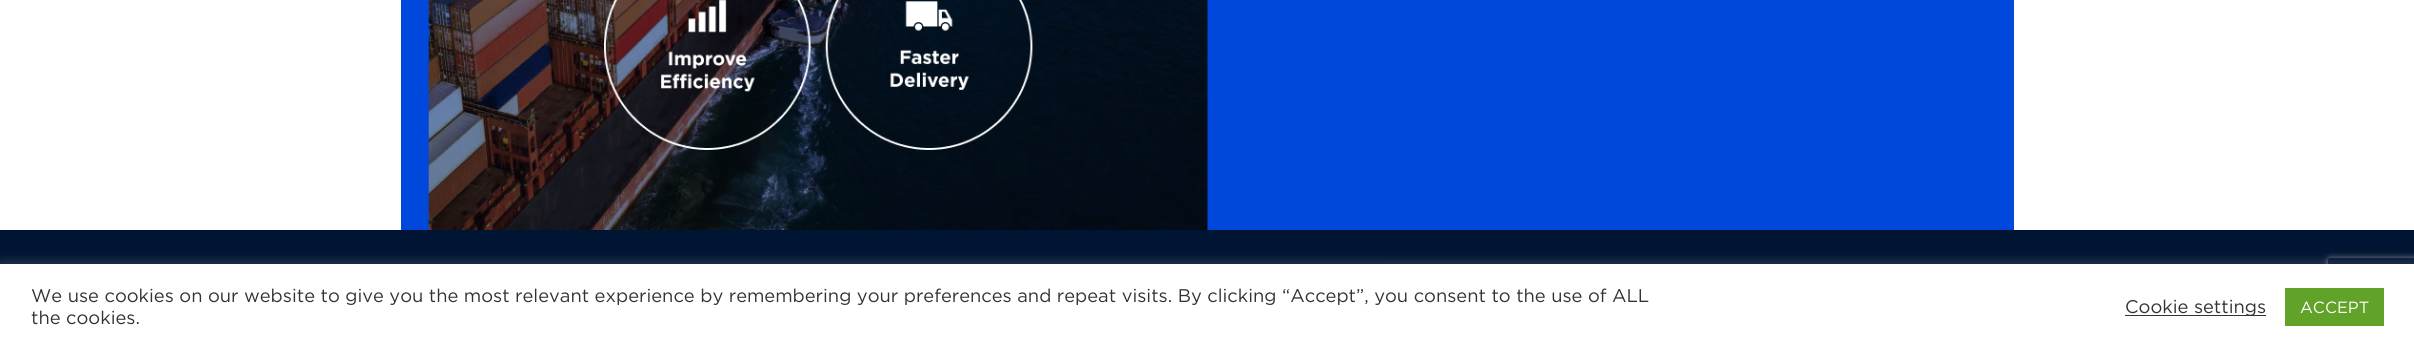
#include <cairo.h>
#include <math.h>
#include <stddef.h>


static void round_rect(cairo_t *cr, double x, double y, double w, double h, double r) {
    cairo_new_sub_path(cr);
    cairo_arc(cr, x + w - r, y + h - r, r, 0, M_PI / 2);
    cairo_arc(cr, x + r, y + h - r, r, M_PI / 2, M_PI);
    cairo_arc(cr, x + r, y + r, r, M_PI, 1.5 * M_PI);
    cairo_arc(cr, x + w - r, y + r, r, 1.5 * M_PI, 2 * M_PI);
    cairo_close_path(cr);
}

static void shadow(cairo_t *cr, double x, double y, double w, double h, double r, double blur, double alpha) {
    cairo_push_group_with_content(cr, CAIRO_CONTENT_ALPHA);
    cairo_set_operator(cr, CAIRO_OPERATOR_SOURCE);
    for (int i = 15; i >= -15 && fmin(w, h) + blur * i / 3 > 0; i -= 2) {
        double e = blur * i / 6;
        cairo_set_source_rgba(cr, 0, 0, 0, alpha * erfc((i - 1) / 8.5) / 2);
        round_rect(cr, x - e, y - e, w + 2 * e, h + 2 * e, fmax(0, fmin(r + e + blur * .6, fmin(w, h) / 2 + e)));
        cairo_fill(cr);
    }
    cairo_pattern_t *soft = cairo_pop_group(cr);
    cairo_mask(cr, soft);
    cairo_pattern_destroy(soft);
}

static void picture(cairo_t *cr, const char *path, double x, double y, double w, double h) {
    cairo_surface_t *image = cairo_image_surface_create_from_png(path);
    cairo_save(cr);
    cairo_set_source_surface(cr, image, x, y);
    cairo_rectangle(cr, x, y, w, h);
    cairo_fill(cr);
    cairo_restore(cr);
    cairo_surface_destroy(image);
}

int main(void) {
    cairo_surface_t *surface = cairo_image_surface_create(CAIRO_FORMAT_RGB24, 2414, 350);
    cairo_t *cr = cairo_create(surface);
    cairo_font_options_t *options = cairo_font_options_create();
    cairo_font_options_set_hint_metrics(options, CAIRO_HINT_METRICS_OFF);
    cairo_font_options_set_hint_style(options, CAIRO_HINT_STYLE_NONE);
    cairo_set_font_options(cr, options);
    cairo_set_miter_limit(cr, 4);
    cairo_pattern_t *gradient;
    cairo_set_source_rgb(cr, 1, 1, 1);
    cairo_paint(cr);
    cairo_set_source_rgb(cr, 0, 0.282, 0.863);
    cairo_rectangle(cr, 401, 0, 1613, 230);
    cairo_fill(cr);
    picture(cr, "img1.png", 428, 0, 780, 230);
    cairo_set_source_rgb(cr, 0, 0.082, 0.204);
    cairo_rectangle(cr, 0, 230, 2414, 34);
    cairo_fill(cr);
    gradient = cairo_pattern_create_linear(1488, 263, 1488, 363);
    cairo_pattern_add_color_stop_rgba(gradient, 0, 0, 0.082, 0.204, 1);
    cairo_pattern_add_color_stop_rgba(gradient, 0.5, 0, 0.082, 0.204, 1);
    cairo_pattern_add_color_stop_rgba(gradient, 0.5, 0.961, 0.51, 0.196, 1);
    cairo_pattern_add_color_stop_rgba(gradient, 1, 0.961, 0.51, 0.196, 1);
    cairo_set_source(cr, gradient);
    cairo_pattern_destroy(gradient);
    cairo_new_path(cr);
    cairo_move_to(cr, 1388, 263);
    cairo_line_to(cr, 1598, 263);
    cairo_line_to(cr, 1598, 315);
    cairo_line_to(cr, 1378, 315);
    cairo_line_to(cr, 1378, 273);
    cairo_curve_to(cr, 1378, 267.5, 1382.5, 263, 1388, 263);
    cairo_close_path(cr);
    cairo_fill(cr);
    cairo_save(cr);
    cairo_set_fill_rule(cr, CAIRO_FILL_RULE_EVEN_ODD);
    cairo_new_path(cr);
    cairo_move_to(cr, 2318, 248);
    cairo_line_to(cr, 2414, 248);
    cairo_line_to(cr, 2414, 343);
    cairo_line_to(cr, 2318, 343);
    cairo_close_path(cr);
    cairo_move_to(cr, 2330.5, 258);
    cairo_line_to(cr, 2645.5, 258);
    cairo_curve_to(cr, 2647, 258, 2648, 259, 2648, 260.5);
    cairo_line_to(cr, 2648, 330.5);
    cairo_curve_to(cr, 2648, 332, 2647, 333, 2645.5, 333);
    cairo_line_to(cr, 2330.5, 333);
    cairo_curve_to(cr, 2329, 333, 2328, 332, 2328, 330.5);
    cairo_line_to(cr, 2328, 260.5);
    cairo_curve_to(cr, 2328, 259, 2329, 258, 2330.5, 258);
    cairo_close_path(cr);
    cairo_clip(cr);
    cairo_set_source_rgb(cr, 0.502, 0.502, 0.502);
    shadow(cr, 2328, 258, 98, 75, 2.5, 3, 1);
    cairo_restore(cr);
    cairo_set_source_rgb(cr, 0.675, 0.671, 0.671);
    shadow(cr, 0, 263, 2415, 86, 0, 6, 0.3);
    cairo_set_source_rgb(cr, 1, 1, 1);
    cairo_rectangle(cr, 0, 264, 2414, 86);
    cairo_fill(cr);
    cairo_select_font_face(cr, "Gotham", CAIRO_FONT_SLANT_NORMAL, CAIRO_FONT_WEIGHT_NORMAL);
    cairo_set_font_size(cr, 18.33);
    cairo_set_source_rgb(cr, 0.2, 0.2, 0.2);
    cairo_move_to(cr, 31, 302);
    cairo_show_text(cr, "We use cookies on our website to give you the most relevant experience by remembering your preferences and repeat visits. By clicking “Accept”, you consent to the use of ALL");
    cairo_move_to(cr, 31, 324);
    cairo_show_text(cr, "the cookies.");
    cairo_rectangle(cr, 2125, 315, 141, 1);
    cairo_fill(cr);
    cairo_move_to(cr, 2125, 313);
    cairo_show_text(cr, "Cookie settings");
    cairo_set_source_rgb(cr, 0.38, 0.635, 0.161);
    cairo_rectangle(cr, 2285, 288, 99, 38);
    cairo_fill(cr);
    cairo_set_font_size(cr, 16.25);
    cairo_set_source_rgb(cr, 1, 1, 1);
    cairo_move_to(cr, 2300, 313);
    cairo_show_text(cr, "ACCEPT");
    cairo_surface_write_to_png(surface, "page.png");
    cairo_font_options_destroy(options);
    cairo_destroy(cr);
    cairo_surface_destroy(surface);
    return 0;
}
